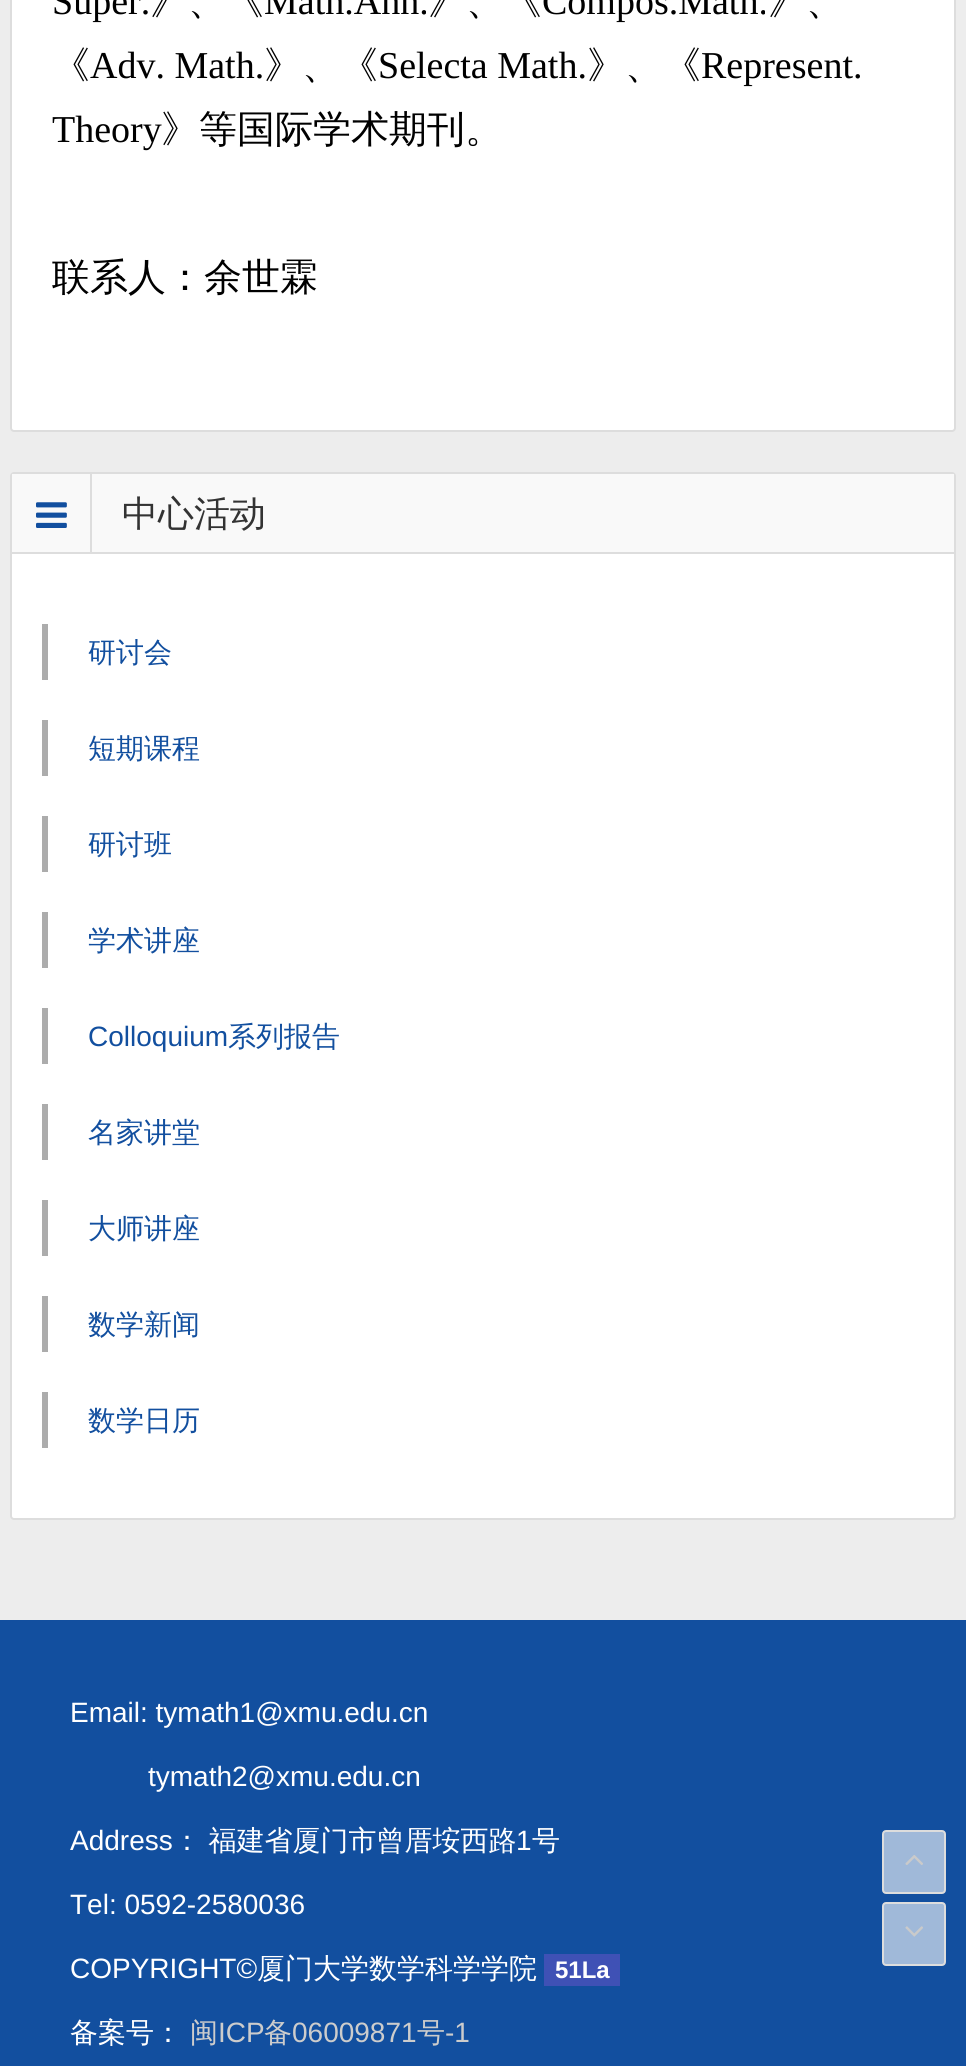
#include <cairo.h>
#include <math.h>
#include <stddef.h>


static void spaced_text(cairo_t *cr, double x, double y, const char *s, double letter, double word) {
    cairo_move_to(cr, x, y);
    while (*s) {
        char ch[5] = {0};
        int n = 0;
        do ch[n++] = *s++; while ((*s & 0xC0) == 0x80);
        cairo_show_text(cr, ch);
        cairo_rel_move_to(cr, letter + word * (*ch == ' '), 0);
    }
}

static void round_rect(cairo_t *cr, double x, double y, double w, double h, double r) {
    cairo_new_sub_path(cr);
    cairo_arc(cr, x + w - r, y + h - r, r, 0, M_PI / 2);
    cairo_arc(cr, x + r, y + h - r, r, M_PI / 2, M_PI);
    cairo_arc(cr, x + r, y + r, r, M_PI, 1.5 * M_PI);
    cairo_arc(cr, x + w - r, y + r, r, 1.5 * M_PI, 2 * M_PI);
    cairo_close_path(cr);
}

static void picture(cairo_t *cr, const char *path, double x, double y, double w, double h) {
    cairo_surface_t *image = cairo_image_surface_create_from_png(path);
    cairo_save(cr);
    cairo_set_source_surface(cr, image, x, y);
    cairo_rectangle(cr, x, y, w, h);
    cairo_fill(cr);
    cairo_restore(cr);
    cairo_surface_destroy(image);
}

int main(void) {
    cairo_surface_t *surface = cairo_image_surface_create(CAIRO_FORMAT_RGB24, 966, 2066);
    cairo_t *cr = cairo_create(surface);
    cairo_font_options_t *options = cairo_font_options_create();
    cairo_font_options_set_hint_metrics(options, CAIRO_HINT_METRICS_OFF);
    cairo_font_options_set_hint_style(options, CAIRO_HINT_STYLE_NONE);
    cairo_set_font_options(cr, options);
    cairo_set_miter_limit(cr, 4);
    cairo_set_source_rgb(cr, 0.929, 0.929, 0.929);
    cairo_paint(cr);
    cairo_set_source_rgb(cr, 1, 1, 1);
    round_rect(cr, 11, -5, 944, 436, 3);
    cairo_fill_preserve(cr);
    cairo_set_source_rgb(cr, 0.867, 0.867, 0.867);
    cairo_stroke(cr);
    cairo_select_font_face(cr, "Liberation Serif", CAIRO_FONT_SLANT_NORMAL, CAIRO_FONT_WEIGHT_NORMAL);
    cairo_set_font_size(cr, 38);
    cairo_set_source_rgb(cr, 0, 0, 0);
    cairo_move_to(cr, 52, 14);
    cairo_show_text(cr, "Supér.");
    cairo_select_font_face(cr, "WenQuanYi Zen Hei Medium", CAIRO_FONT_SLANT_NORMAL, CAIRO_FONT_WEIGHT_NORMAL);
    cairo_move_to(cr, 150, 14);
    cairo_show_text(cr, "》、《");
    cairo_select_font_face(cr, "Liberation Serif", CAIRO_FONT_SLANT_NORMAL, CAIRO_FONT_WEIGHT_NORMAL);
    cairo_move_to(cr, 264, 14);
    cairo_show_text(cr, "Math.Ann.");
    cairo_select_font_face(cr, "WenQuanYi Zen Hei Medium", CAIRO_FONT_SLANT_NORMAL, CAIRO_FONT_WEIGHT_NORMAL);
    cairo_move_to(cr, 428, 14);
    cairo_show_text(cr, "》、《");
    cairo_select_font_face(cr, "Liberation Serif", CAIRO_FONT_SLANT_NORMAL, CAIRO_FONT_WEIGHT_NORMAL);
    cairo_move_to(cr, 542, 14);
    cairo_show_text(cr, "Compos.Math.");
    cairo_select_font_face(cr, "WenQuanYi Zen Hei Medium", CAIRO_FONT_SLANT_NORMAL, CAIRO_FONT_WEIGHT_NORMAL);
    cairo_move_to(cr, 768, 14);
    cairo_show_text(cr, "》、");
    cairo_move_to(cr, 52, 78);
    cairo_show_text(cr, "《");
    cairo_select_font_face(cr, "Liberation Serif", CAIRO_FONT_SLANT_NORMAL, CAIRO_FONT_WEIGHT_NORMAL);
    cairo_move_to(cr, 90, 78);
    cairo_show_text(cr, "Adv. Math.");
    cairo_select_font_face(cr, "WenQuanYi Zen Hei Medium", CAIRO_FONT_SLANT_NORMAL, CAIRO_FONT_WEIGHT_NORMAL);
    cairo_move_to(cr, 264, 78);
    cairo_show_text(cr, "》、《");
    cairo_select_font_face(cr, "Liberation Serif", CAIRO_FONT_SLANT_NORMAL, CAIRO_FONT_WEIGHT_NORMAL);
    cairo_move_to(cr, 378, 78);
    cairo_show_text(cr, "Selecta Math.");
    cairo_select_font_face(cr, "WenQuanYi Zen Hei Medium", CAIRO_FONT_SLANT_NORMAL, CAIRO_FONT_WEIGHT_NORMAL);
    cairo_move_to(cr, 587, 78);
    cairo_show_text(cr, "》、《");
    cairo_select_font_face(cr, "Liberation Serif", CAIRO_FONT_SLANT_NORMAL, CAIRO_FONT_WEIGHT_NORMAL);
    cairo_move_to(cr, 701, 78);
    cairo_show_text(cr, "Represent.");
    cairo_move_to(cr, 52, 142);
    cairo_show_text(cr, "Theory");
    cairo_select_font_face(cr, "WenQuanYi Zen Hei Medium", CAIRO_FONT_SLANT_NORMAL, CAIRO_FONT_WEIGHT_NORMAL);
    cairo_move_to(cr, 161, 142);
    cairo_show_text(cr, "》等国际学术期刊。");
    cairo_move_to(cr, 52, 290);
    cairo_show_text(cr, "联系人：余世霖");
    cairo_set_source_rgb(cr, 1, 1, 1);
    round_rect(cr, 11, 473, 944, 1046, 3);
    cairo_fill_preserve(cr);
    cairo_set_source_rgb(cr, 0.867, 0.867, 0.867);
    cairo_stroke(cr);
    cairo_set_source_rgb(cr, 0.973, 0.973, 0.973);
    cairo_rectangle(cr, 12, 474, 942, 78);
    cairo_fill(cr);
    cairo_set_source_rgb(cr, 0.867, 0.867, 0.867);
    cairo_rectangle(cr, 12, 552, 942, 2);
    cairo_fill(cr);
    cairo_rectangle(cr, 90, 474, 2, 80);
    cairo_fill(cr);
    picture(cr, "img1.png", 36, 502, 31, 26);
    cairo_set_font_size(cr, 36);
    cairo_set_source_rgb(cr, 0.2, 0.2, 0.2);
    cairo_move_to(cr, 122, 526);
    cairo_show_text(cr, "中心活动");
    cairo_set_source_rgb(cr, 0.675, 0.675, 0.675);
    cairo_rectangle(cr, 42, 624, 6, 56);
    cairo_fill(cr);
    cairo_set_font_size(cr, 28);
    cairo_set_source_rgb(cr, 0.071, 0.31, 0.624);
    cairo_move_to(cr, 88, 662);
    cairo_show_text(cr, "研讨会");
    cairo_set_source_rgb(cr, 0.675, 0.675, 0.675);
    cairo_rectangle(cr, 42, 720, 6, 56);
    cairo_fill(cr);
    cairo_set_source_rgb(cr, 0.071, 0.31, 0.624);
    cairo_move_to(cr, 88, 758);
    cairo_show_text(cr, "短期课程");
    cairo_set_source_rgb(cr, 0.675, 0.675, 0.675);
    cairo_rectangle(cr, 42, 816, 6, 56);
    cairo_fill(cr);
    cairo_set_source_rgb(cr, 0.071, 0.31, 0.624);
    cairo_move_to(cr, 88, 854);
    cairo_show_text(cr, "研讨班");
    cairo_set_source_rgb(cr, 0.675, 0.675, 0.675);
    cairo_rectangle(cr, 42, 912, 6, 56);
    cairo_fill(cr);
    cairo_set_source_rgb(cr, 0.071, 0.31, 0.624);
    cairo_move_to(cr, 88, 950);
    cairo_show_text(cr, "学术讲座");
    cairo_set_source_rgb(cr, 0.675, 0.675, 0.675);
    cairo_rectangle(cr, 42, 1008, 6, 56);
    cairo_fill(cr);
    cairo_select_font_face(cr, "Liberation Sans", CAIRO_FONT_SLANT_NORMAL, CAIRO_FONT_WEIGHT_NORMAL);
    cairo_set_source_rgb(cr, 0.071, 0.31, 0.624);
    cairo_move_to(cr, 88, 1046);
    cairo_show_text(cr, "Colloquium");
    cairo_select_font_face(cr, "WenQuanYi Zen Hei Medium", CAIRO_FONT_SLANT_NORMAL, CAIRO_FONT_WEIGHT_NORMAL);
    cairo_move_to(cr, 228, 1046);
    cairo_show_text(cr, "系列报告");
    cairo_set_source_rgb(cr, 0.675, 0.675, 0.675);
    cairo_rectangle(cr, 42, 1104, 6, 56);
    cairo_fill(cr);
    cairo_set_source_rgb(cr, 0.071, 0.31, 0.624);
    cairo_move_to(cr, 88, 1142);
    cairo_show_text(cr, "名家讲堂");
    cairo_set_source_rgb(cr, 0.675, 0.675, 0.675);
    cairo_rectangle(cr, 42, 1200, 6, 56);
    cairo_fill(cr);
    cairo_set_source_rgb(cr, 0.071, 0.31, 0.624);
    cairo_move_to(cr, 88, 1238);
    cairo_show_text(cr, "大师讲座");
    cairo_set_source_rgb(cr, 0.675, 0.675, 0.675);
    cairo_rectangle(cr, 42, 1296, 6, 56);
    cairo_fill(cr);
    cairo_set_source_rgb(cr, 0.071, 0.31, 0.624);
    cairo_move_to(cr, 88, 1334);
    cairo_show_text(cr, "数学新闻");
    cairo_set_source_rgb(cr, 0.675, 0.675, 0.675);
    cairo_rectangle(cr, 42, 1392, 6, 56);
    cairo_fill(cr);
    cairo_set_source_rgb(cr, 0.071, 0.31, 0.624);
    cairo_move_to(cr, 88, 1430);
    cairo_show_text(cr, "数学日历");
    cairo_rectangle(cr, 0, 1620, 966, 446);
    cairo_fill(cr);
    cairo_select_font_face(cr, "Liberation Sans", CAIRO_FONT_SLANT_NORMAL, CAIRO_FONT_WEIGHT_NORMAL);
    cairo_set_source_rgb(cr, 1, 1, 1);
    cairo_move_to(cr, 70, 1722);
    cairo_show_text(cr, "Email: tymath1@xmu.edu.cn");
    cairo_move_to(cr, 148, 1786);
    cairo_show_text(cr, "tymath2@xmu.edu.cn");
    cairo_move_to(cr, 70, 1850);
    cairo_show_text(cr, "Address");
    cairo_select_font_face(cr, "WenQuanYi Zen Hei Medium", CAIRO_FONT_SLANT_NORMAL, CAIRO_FONT_WEIGHT_NORMAL);
    spaced_text(cr, 173, 1850, "： 福建省厦门市曾厝垵西路", 0, -1);
    cairo_select_font_face(cr, "Liberation Sans", CAIRO_FONT_SLANT_NORMAL, CAIRO_FONT_WEIGHT_NORMAL);
    cairo_move_to(cr, 516, 1850);
    cairo_show_text(cr, "1");
    cairo_select_font_face(cr, "WenQuanYi Zen Hei Medium", CAIRO_FONT_SLANT_NORMAL, CAIRO_FONT_WEIGHT_NORMAL);
    cairo_move_to(cr, 532, 1850);
    cairo_show_text(cr, "号");
    cairo_select_font_face(cr, "Liberation Sans", CAIRO_FONT_SLANT_NORMAL, CAIRO_FONT_WEIGHT_NORMAL);
    cairo_move_to(cr, 70, 1914);
    cairo_show_text(cr, "Tel: 0592-2580036");
    cairo_move_to(cr, 70, 1978);
    cairo_show_text(cr, "COPYRIGHT©");
    cairo_select_font_face(cr, "WenQuanYi Zen Hei Medium", CAIRO_FONT_SLANT_NORMAL, CAIRO_FONT_WEIGHT_NORMAL);
    cairo_move_to(cr, 257, 1978);
    cairo_show_text(cr, "厦门大学数学科学学院");
    cairo_set_source_rgb(cr, 0.247, 0.318, 0.71);
    cairo_rectangle(cr, 544, 1954, 76, 32);
    cairo_fill(cr);
    cairo_select_font_face(cr, "Liberation Sans", CAIRO_FONT_SLANT_NORMAL, CAIRO_FONT_WEIGHT_BOLD);
    cairo_set_font_size(cr, 24);
    cairo_set_source_rgb(cr, 1, 1, 1);
    cairo_move_to(cr, 555, 1978);
    cairo_show_text(cr, "51La");
    cairo_select_font_face(cr, "WenQuanYi Zen Hei Medium", CAIRO_FONT_SLANT_NORMAL, CAIRO_FONT_WEIGHT_NORMAL);
    cairo_set_font_size(cr, 28);
    cairo_move_to(cr, 70, 2042);
    cairo_show_text(cr, "备案号：");
    cairo_set_source_rgb(cr, 0.8, 0.8, 0.8);
    cairo_move_to(cr, 190, 2042);
    cairo_show_text(cr, "闽");
    cairo_select_font_face(cr, "Liberation Sans", CAIRO_FONT_SLANT_NORMAL, CAIRO_FONT_WEIGHT_NORMAL);
    cairo_move_to(cr, 218, 2042);
    cairo_show_text(cr, "ICP");
    cairo_select_font_face(cr, "WenQuanYi Zen Hei Medium", CAIRO_FONT_SLANT_NORMAL, CAIRO_FONT_WEIGHT_NORMAL);
    cairo_move_to(cr, 264, 2042);
    cairo_show_text(cr, "备");
    cairo_select_font_face(cr, "Liberation Sans", CAIRO_FONT_SLANT_NORMAL, CAIRO_FONT_WEIGHT_NORMAL);
    cairo_move_to(cr, 292, 2042);
    cairo_show_text(cr, "06009871");
    cairo_select_font_face(cr, "WenQuanYi Zen Hei Medium", CAIRO_FONT_SLANT_NORMAL, CAIRO_FONT_WEIGHT_NORMAL);
    cairo_move_to(cr, 417, 2042);
    cairo_show_text(cr, "号");
    cairo_select_font_face(cr, "Liberation Sans", CAIRO_FONT_SLANT_NORMAL, CAIRO_FONT_WEIGHT_NORMAL);
    cairo_move_to(cr, 445, 2042);
    cairo_show_text(cr, "-1");
    cairo_set_source_rgb(cr, 0.627, 0.725, 0.851);
    round_rect(cr, 883, 1831, 62, 62, 3);
    cairo_fill_preserve(cr);
    cairo_set_source_rgb(cr, 0.867, 0.867, 0.867);
    cairo_stroke(cr);
    picture(cr, "img2.png", 905, 1855, 18, 10);
    cairo_set_source_rgb(cr, 0.627, 0.725, 0.851);
    round_rect(cr, 883, 1903, 62, 62, 3);
    cairo_fill_preserve(cr);
    cairo_set_source_rgb(cr, 0.867, 0.867, 0.867);
    cairo_stroke(cr);
    picture(cr, "img3.png", 905, 1926, 18, 11);
    cairo_surface_write_to_png(surface, "page.png");
    cairo_font_options_destroy(options);
    cairo_destroy(cr);
    cairo_surface_destroy(surface);
    return 0;
}
